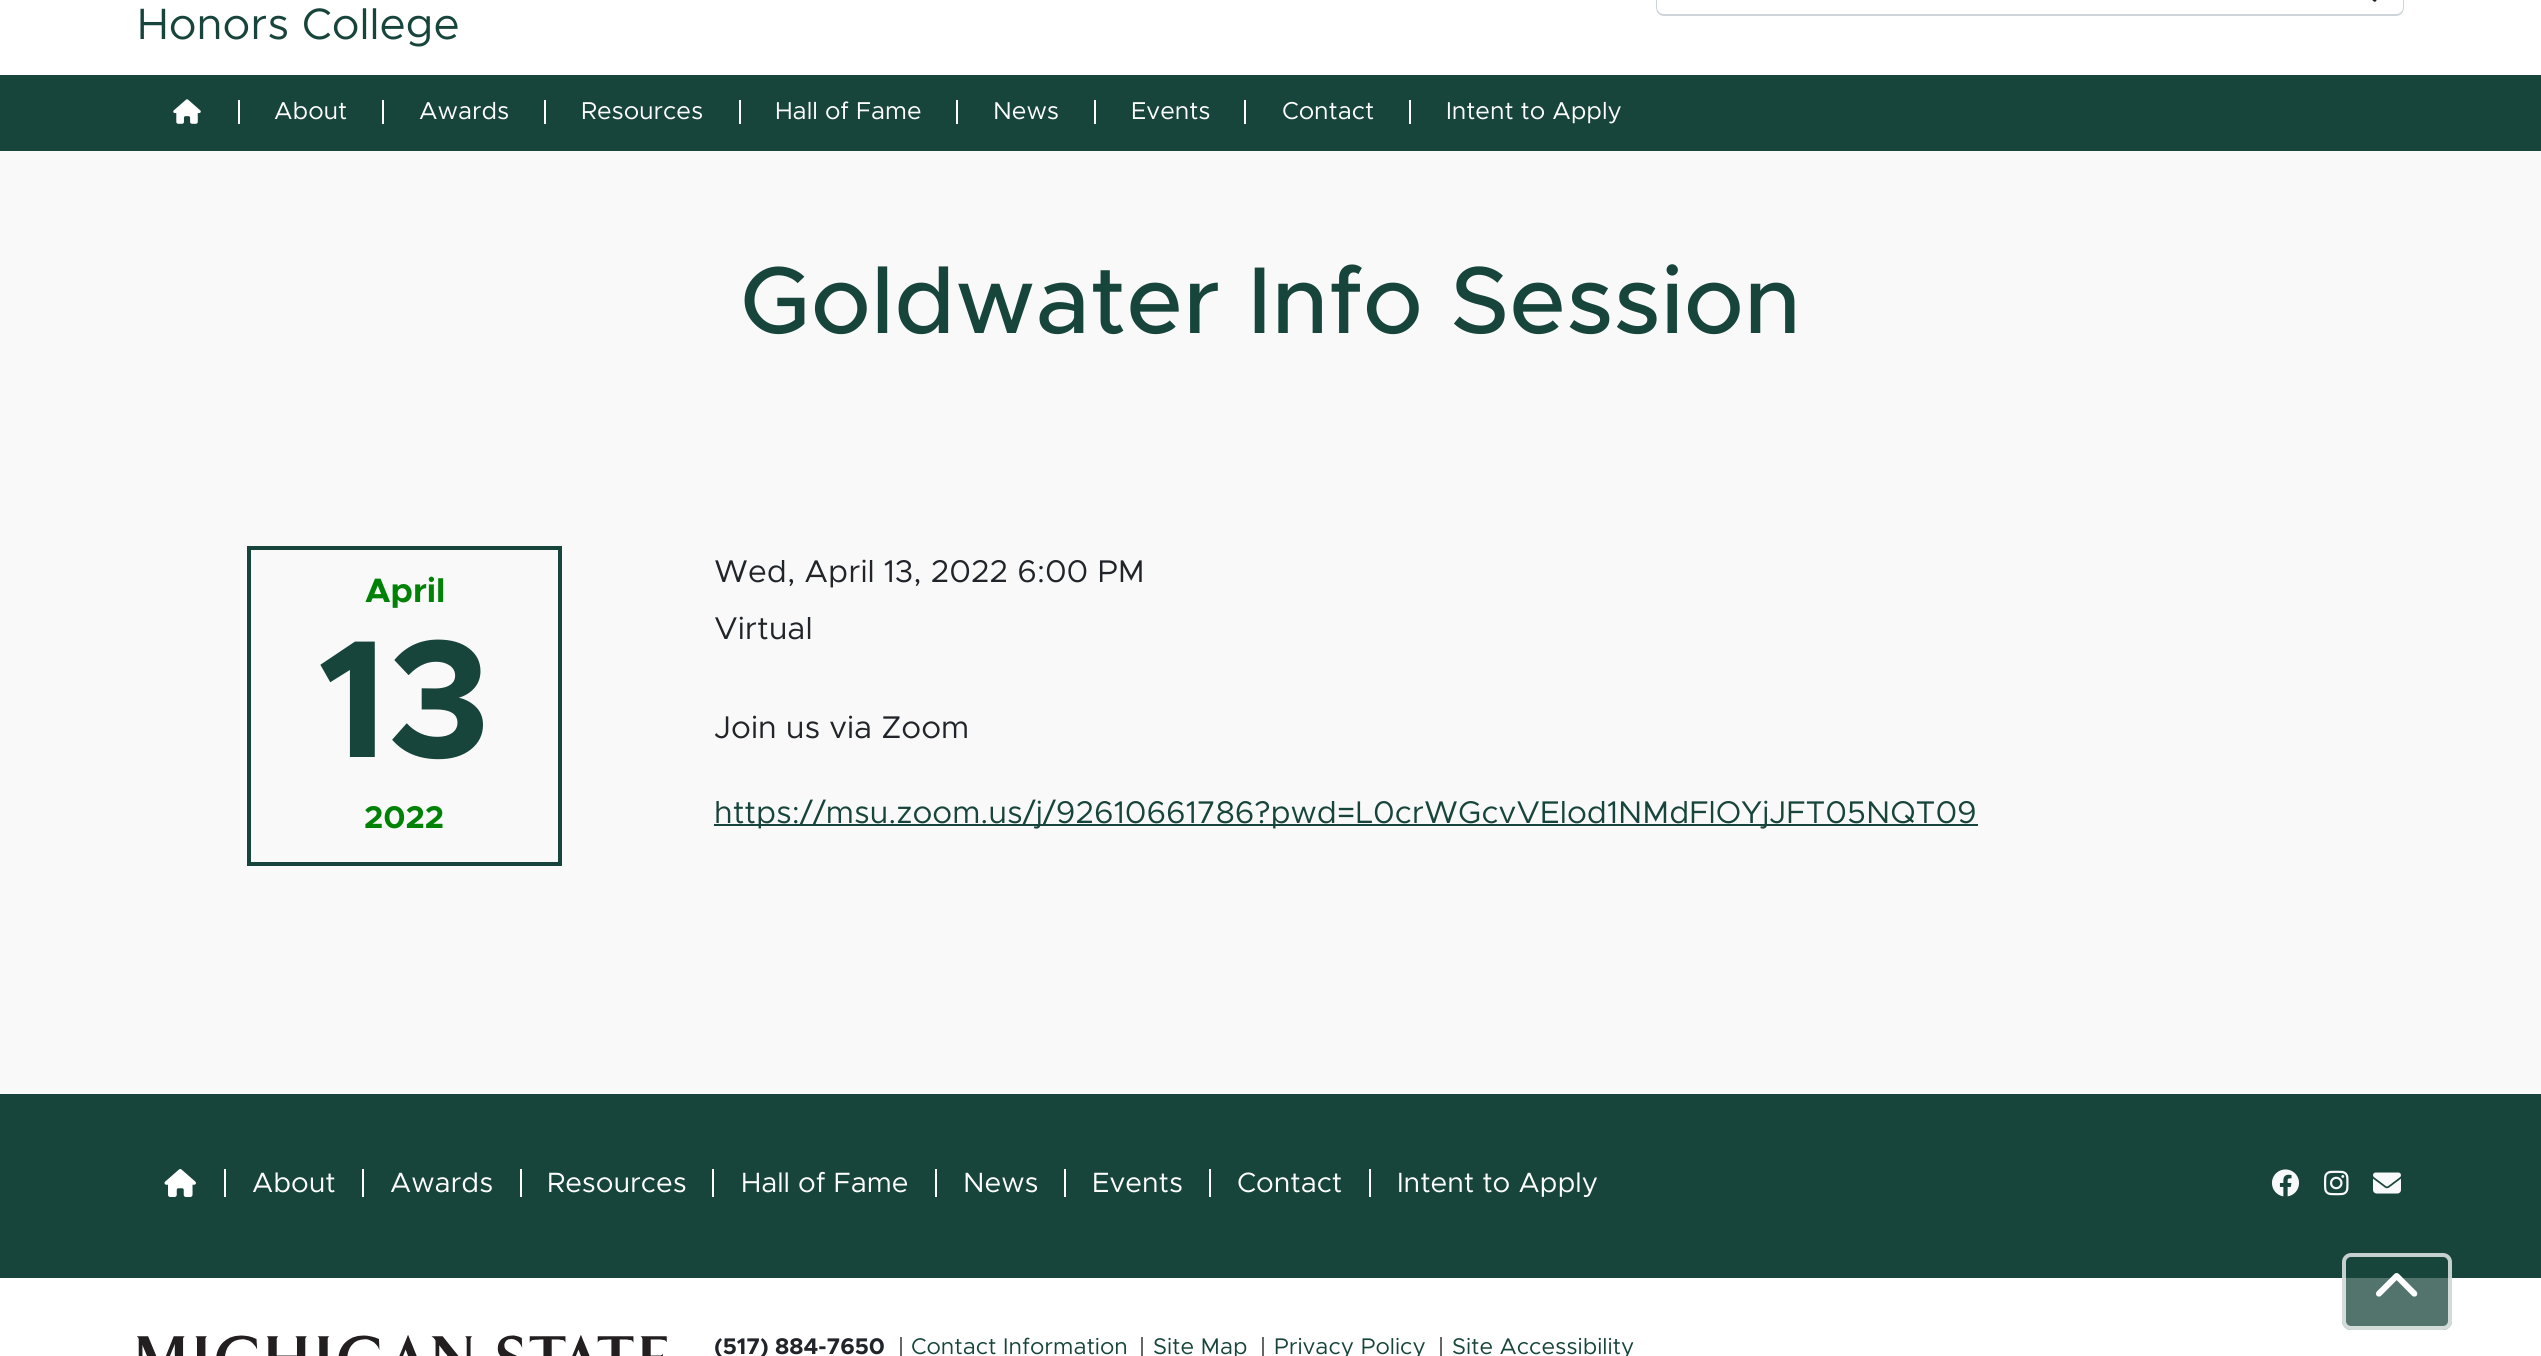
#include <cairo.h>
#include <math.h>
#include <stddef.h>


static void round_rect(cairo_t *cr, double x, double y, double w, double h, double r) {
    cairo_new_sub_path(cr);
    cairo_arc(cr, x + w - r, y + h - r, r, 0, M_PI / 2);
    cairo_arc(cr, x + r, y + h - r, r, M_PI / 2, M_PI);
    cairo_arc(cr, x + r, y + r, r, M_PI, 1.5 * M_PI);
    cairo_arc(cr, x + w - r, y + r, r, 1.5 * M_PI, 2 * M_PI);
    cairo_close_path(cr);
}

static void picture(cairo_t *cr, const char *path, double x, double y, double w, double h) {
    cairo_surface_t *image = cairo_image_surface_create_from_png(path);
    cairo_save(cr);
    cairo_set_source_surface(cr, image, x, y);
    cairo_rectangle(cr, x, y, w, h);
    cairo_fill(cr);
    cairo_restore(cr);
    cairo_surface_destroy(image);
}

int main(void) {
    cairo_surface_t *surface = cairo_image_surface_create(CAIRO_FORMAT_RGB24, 2541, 1356);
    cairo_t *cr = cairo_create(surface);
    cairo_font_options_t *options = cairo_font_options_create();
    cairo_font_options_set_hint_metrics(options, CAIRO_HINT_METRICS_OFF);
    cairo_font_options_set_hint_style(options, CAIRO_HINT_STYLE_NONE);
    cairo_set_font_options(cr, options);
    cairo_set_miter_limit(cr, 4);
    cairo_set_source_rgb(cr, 1, 1, 1);
    cairo_paint(cr);
    cairo_set_source_rgb(cr, 0.808, 0.831, 0.855);
    cairo_set_fill_rule(cr, CAIRO_FILL_RULE_EVEN_ODD);
    cairo_new_path(cr);
    cairo_move_to(cr, 1664, -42);
    cairo_line_to(cr, 2350, -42);
    cairo_line_to(cr, 2350, 16);
    cairo_line_to(cr, 1664, 16);
    cairo_curve_to(cr, 1659, 16, 1656, 12, 1656, 7);
    cairo_line_to(cr, 1656, -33);
    cairo_curve_to(cr, 1656, -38, 1659, -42, 1664, -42);
    cairo_close_path(cr);
    cairo_move_to(cr, 1664, -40);
    cairo_line_to(cr, 2350, -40);
    cairo_line_to(cr, 2350, 14);
    cairo_line_to(cr, 1664, 14);
    cairo_curve_to(cr, 1660, 14, 1657, 11, 1657, 7);
    cairo_line_to(cr, 1657, -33);
    cairo_curve_to(cr, 1657, -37, 1660, -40, 1664, -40);
    cairo_close_path(cr);
    cairo_fill(cr);
    cairo_set_source_rgb(cr, 1, 1, 1);
    cairo_new_path(cr);
    cairo_move_to(cr, 2349, -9);
    cairo_line_to(cr, 2396, -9);
    cairo_curve_to(cr, 2401, -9, 2405, -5, 2405, 0);
    cairo_line_to(cr, 2405, 7);
    cairo_curve_to(cr, 2405, 12, 2401, 16, 2396, 16);
    cairo_line_to(cr, 2349, 16);
    cairo_close_path(cr);
    cairo_fill(cr);
    cairo_set_source_rgb(cr, 0.808, 0.831, 0.855);
    cairo_new_path(cr);
    cairo_move_to(cr, 2348, -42);
    cairo_line_to(cr, 2396, -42);
    cairo_curve_to(cr, 2401, -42, 2404, -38, 2404, -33);
    cairo_line_to(cr, 2404, 7);
    cairo_curve_to(cr, 2404, 12, 2401, 16, 2396, 16);
    cairo_line_to(cr, 2348, 16);
    cairo_close_path(cr);
    cairo_move_to(cr, 2348, -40);
    cairo_line_to(cr, 2396, -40);
    cairo_curve_to(cr, 2400, -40, 2403, -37, 2403, -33);
    cairo_line_to(cr, 2403, 7);
    cairo_curve_to(cr, 2403, 11, 2400, 14, 2396, 14);
    cairo_line_to(cr, 2348, 14);
    cairo_close_path(cr);
    cairo_fill(cr);
    picture(cr, "img1.png", 2372, 0, 5, 2);
    cairo_select_font_face(cr, "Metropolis", CAIRO_FONT_SLANT_NORMAL, CAIRO_FONT_WEIGHT_NORMAL);
    cairo_set_font_size(cr, 44);
    cairo_set_source_rgb(cr, 0.094, 0.271, 0.231);
    cairo_move_to(cr, 137, 39);
    cairo_show_text(cr, "Honors College");
    cairo_rectangle(cr, 0, 75, 2541, 76);
    cairo_fill(cr);
    picture(cr, "img2.png", 173, 99, 28, 25);
    cairo_set_source_rgb(cr, 1, 1, 1);
    cairo_rectangle(cr, 238, 100, 2, 24);
    cairo_fill(cr);
    cairo_set_font_size(cr, 24.5);
    cairo_move_to(cr, 274, 119);
    cairo_show_text(cr, "About");
    cairo_rectangle(cr, 382, 100, 2, 24);
    cairo_fill(cr);
    cairo_move_to(cr, 419, 119);
    cairo_show_text(cr, "Awards");
    cairo_rectangle(cr, 544, 100, 2, 24);
    cairo_fill(cr);
    cairo_move_to(cr, 581, 119);
    cairo_show_text(cr, "Resources");
    cairo_rectangle(cr, 739, 100, 2, 24);
    cairo_fill(cr);
    cairo_move_to(cr, 775, 119);
    cairo_show_text(cr, "Hall of Fame");
    cairo_rectangle(cr, 956, 100, 2, 24);
    cairo_fill(cr);
    cairo_move_to(cr, 993, 119);
    cairo_show_text(cr, "News");
    cairo_rectangle(cr, 1094, 100, 2, 24);
    cairo_fill(cr);
    cairo_move_to(cr, 1131, 119);
    cairo_show_text(cr, "Events");
    cairo_rectangle(cr, 1244, 100, 2, 24);
    cairo_fill(cr);
    cairo_move_to(cr, 1282, 119);
    cairo_show_text(cr, "Contact");
    cairo_rectangle(cr, 1409, 100, 2, 24);
    cairo_fill(cr);
    cairo_move_to(cr, 1446, 119);
    cairo_show_text(cr, "Intent to Apply");
    cairo_set_source_rgb(cr, 0.976, 0.976, 0.976);
    cairo_rectangle(cr, 0, 151, 2541, 943);
    cairo_fill(cr);
    cairo_select_font_face(cr, "Metropolis Medium", CAIRO_FONT_SLANT_NORMAL, CAIRO_FONT_WEIGHT_NORMAL);
    cairo_set_font_size(cr, 95.25);
    cairo_set_source_rgb(cr, 0.094, 0.271, 0.231);
    cairo_move_to(cr, 740, 333);
    cairo_show_text(cr, "Goldwater Info Session");
    cairo_rectangle(cr, 249, 548, 311, 316);
    cairo_set_line_width(cr, 4);
    cairo_stroke(cr);
    cairo_select_font_face(cr, "Metropolis", CAIRO_FONT_SLANT_NORMAL, CAIRO_FONT_WEIGHT_BOLD);
    cairo_set_font_size(cr, 34);
    cairo_set_source_rgb(cr, 0, 0.51, 0.031);
    cairo_move_to(cr, 365, 602);
    cairo_show_text(cr, "April");
    cairo_set_font_size(cr, 168);
    cairo_set_source_rgb(cr, 0.094, 0.271, 0.231);
    cairo_move_to(cr, 318, 757);
    cairo_show_text(cr, "13");
    cairo_set_font_size(cr, 31.5);
    cairo_set_source_rgb(cr, 0, 0.51, 0.031);
    cairo_move_to(cr, 364, 828);
    cairo_show_text(cr, "2022");
    cairo_select_font_face(cr, "Metropolis", CAIRO_FONT_SLANT_NORMAL, CAIRO_FONT_WEIGHT_NORMAL);
    cairo_set_source_rgb(cr, 0.129, 0.145, 0.161);
    cairo_move_to(cr, 714, 582);
    cairo_show_text(cr, "Wed, April 13, 2022 6:00 PM");
    cairo_move_to(cr, 714, 639);
    cairo_show_text(cr, "Virtual");
    cairo_move_to(cr, 714, 738);
    cairo_show_text(cr, "Join us via Zoom");
    cairo_set_source_rgb(cr, 0.094, 0.271, 0.231);
    cairo_rectangle(cr, 714, 824, 1264, 2);
    cairo_fill(cr);
    cairo_move_to(cr, 714, 823);
    cairo_show_text(cr, "https://msu.zoom.us/j/92610661786?pwd=L0crWGcvVElod1NMdFlOYjJFT05NQT09");
    cairo_rectangle(cr, 0, 1094, 2541, 184);
    cairo_fill(cr);
    picture(cr, "img3.png", 164, 1169, 32, 28);
    cairo_set_source_rgb(cr, 1, 1, 1);
    cairo_rectangle(cr, 224, 1169, 2, 28);
    cairo_fill(cr);
    cairo_set_font_size(cr, 28);
    cairo_move_to(cr, 252, 1192);
    cairo_show_text(cr, "About");
    cairo_rectangle(cr, 362, 1169, 2, 28);
    cairo_fill(cr);
    cairo_move_to(cr, 390, 1192);
    cairo_show_text(cr, "Awards");
    cairo_rectangle(cr, 520, 1169, 2, 28);
    cairo_fill(cr);
    cairo_move_to(cr, 547, 1192);
    cairo_show_text(cr, "Resources");
    cairo_rectangle(cr, 712, 1169, 2, 28);
    cairo_fill(cr);
    cairo_move_to(cr, 741, 1192);
    cairo_show_text(cr, "Hall of Fame");
    cairo_rectangle(cr, 935, 1169, 2, 28);
    cairo_fill(cr);
    cairo_move_to(cr, 963, 1192);
    cairo_show_text(cr, "News");
    cairo_rectangle(cr, 1064, 1169, 2, 28);
    cairo_fill(cr);
    cairo_move_to(cr, 1092, 1192);
    cairo_show_text(cr, "Events");
    cairo_rectangle(cr, 1209, 1169, 2, 28);
    cairo_fill(cr);
    cairo_move_to(cr, 1237, 1192);
    cairo_show_text(cr, "Contact");
    cairo_rectangle(cr, 1369, 1169, 2, 28);
    cairo_fill(cr);
    cairo_move_to(cr, 1397, 1192);
    cairo_show_text(cr, "Intent to Apply");
    picture(cr, "img4.png", 2271, 1169, 29, 28);
    picture(cr, "img5.png", 2324, 1170, 25, 26);
    picture(cr, "img6.png", 2373, 1172, 28, 22);
    picture(cr, "img7.png", 137, 1335, 530, 21);
    cairo_select_font_face(cr, "Metropolis", CAIRO_FONT_SLANT_NORMAL, CAIRO_FONT_WEIGHT_BOLD);
    cairo_set_font_size(cr, 22.75);
    cairo_set_source_rgb(cr, 0.129, 0.145, 0.161);
    cairo_move_to(cr, 714, 1354);
    cairo_show_text(cr, "(517) 884-7650");
    cairo_select_font_face(cr, "Metropolis", CAIRO_FONT_SLANT_NORMAL, CAIRO_FONT_WEIGHT_NORMAL);
    cairo_set_source_rgb(cr, 0.094, 0.271, 0.231);
    cairo_move_to(cr, 911, 1354);
    cairo_show_text(cr, "Contact Information");
    cairo_set_source_rgb(cr, 0.4, 0.4, 0.4);
    cairo_rectangle(cr, 900, 1337, 2, 19);
    cairo_fill(cr);
    cairo_set_source_rgb(cr, 0.094, 0.271, 0.231);
    cairo_move_to(cr, 1153, 1354);
    cairo_show_text(cr, "Site Map");
    cairo_set_source_rgb(cr, 0.4, 0.4, 0.4);
    cairo_rectangle(cr, 1141, 1337, 2, 19);
    cairo_fill(cr);
    cairo_set_source_rgb(cr, 0.094, 0.271, 0.231);
    cairo_move_to(cr, 1274, 1354);
    cairo_show_text(cr, "Privacy Policy");
    cairo_set_source_rgb(cr, 0.4, 0.4, 0.4);
    cairo_rectangle(cr, 1262, 1337, 2, 19);
    cairo_fill(cr);
    cairo_set_source_rgb(cr, 0.094, 0.271, 0.231);
    cairo_move_to(cr, 1452, 1354);
    cairo_show_text(cr, "Site Accessibility");
    cairo_set_source_rgb(cr, 0.4, 0.4, 0.4);
    cairo_rectangle(cr, 1440, 1337, 2, 19);
    cairo_fill(cr);
    cairo_set_source_rgba(cr, 0.094, 0.271, 0.231, 0.75);
    round_rect(cr, 2342, 1253, 110, 77, 9);
    cairo_fill(cr);
    round_rect(cr, 2344, 1255, 106, 73, 7);
    cairo_set_source_rgba(cr, 1, 1, 1, 0.75);
    cairo_stroke(cr);
    picture(cr, "img8.png", 2376, 1273, 42, 24);
    cairo_surface_write_to_png(surface, "page.png");
    cairo_font_options_destroy(options);
    cairo_destroy(cr);
    cairo_surface_destroy(surface);
    return 0;
}
